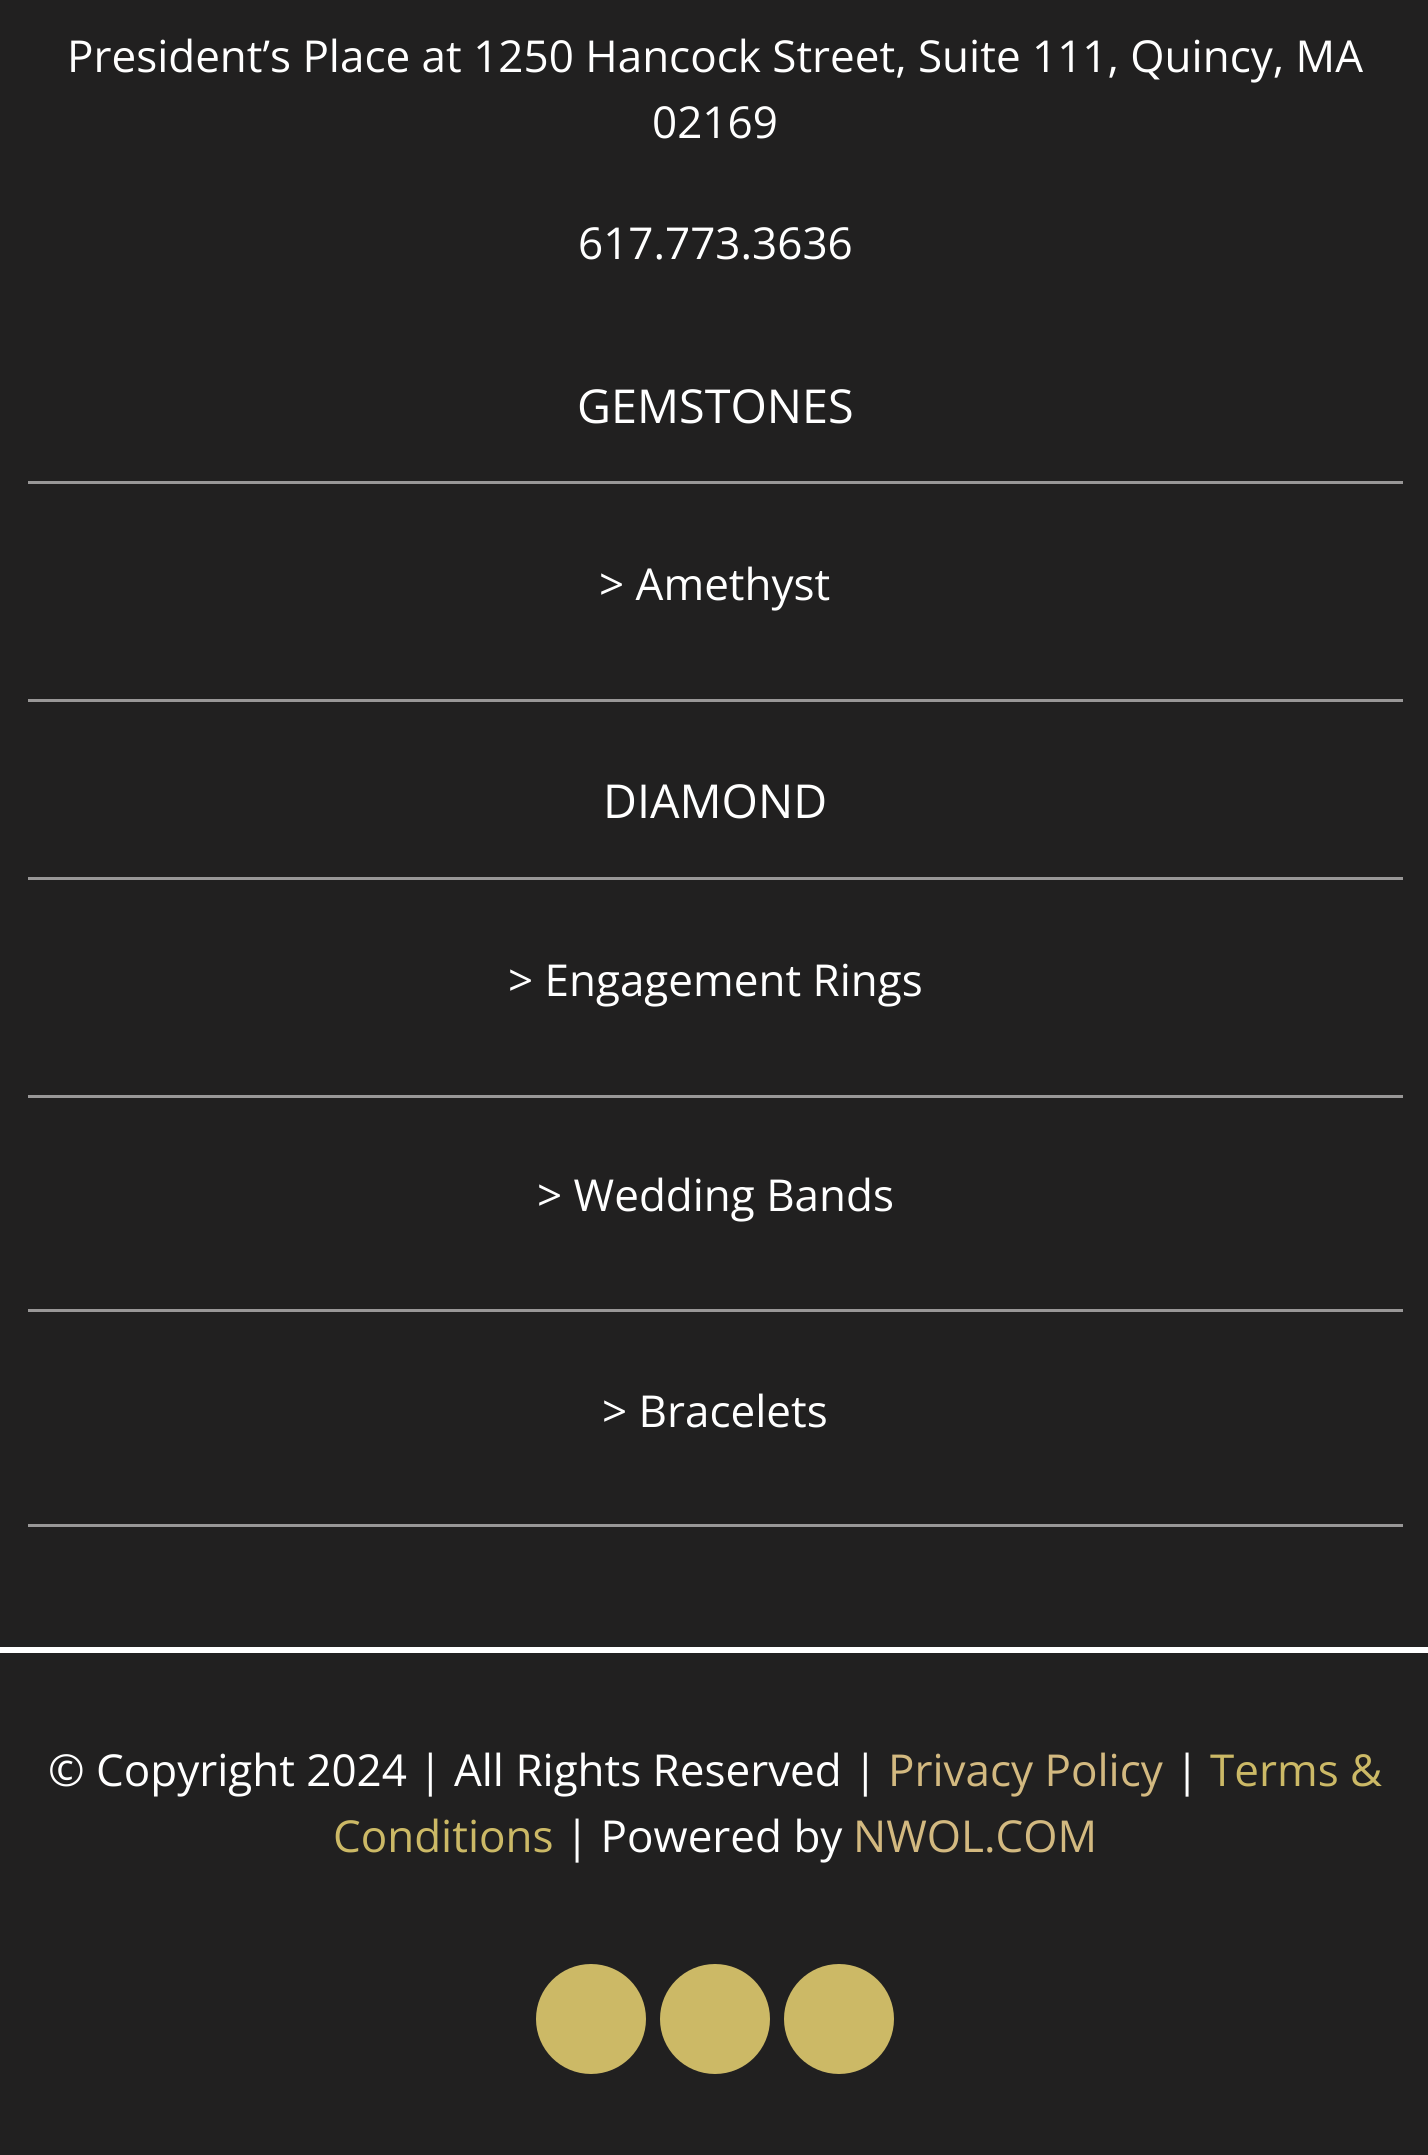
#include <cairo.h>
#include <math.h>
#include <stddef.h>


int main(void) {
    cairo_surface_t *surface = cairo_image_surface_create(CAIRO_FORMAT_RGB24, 1428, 2155);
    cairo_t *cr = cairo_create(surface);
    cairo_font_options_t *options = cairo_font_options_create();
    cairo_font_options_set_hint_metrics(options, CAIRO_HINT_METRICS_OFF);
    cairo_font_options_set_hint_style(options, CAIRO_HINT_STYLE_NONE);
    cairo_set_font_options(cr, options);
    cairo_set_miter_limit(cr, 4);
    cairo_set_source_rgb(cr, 1, 1, 1);
    cairo_paint(cr);
    cairo_set_source_rgb(cr, 0.129, 0.125, 0.125);
    cairo_rectangle(cr, 0, 0, 1428, 1647);
    cairo_fill(cr);
    cairo_select_font_face(cr, "Open Sans", CAIRO_FONT_SLANT_NORMAL, CAIRO_FONT_WEIGHT_NORMAL);
    cairo_set_font_size(cr, 44);
    cairo_set_source_rgb(cr, 1, 1, 1);
    cairo_move_to(cr, 67, 72);
    cairo_show_text(cr, "President’s Place at 1250 Hancock Street, Suite 111, Quincy, MA");
    cairo_move_to(cr, 652, 138);
    cairo_show_text(cr, "02169");
    cairo_move_to(cr, 578, 259);
    cairo_show_text(cr, "617.773.3636");
    cairo_set_font_size(cr, 46.75);
    cairo_move_to(cr, 577, 423);
    cairo_show_text(cr, "GEMSTONES");
    cairo_set_source_rgb(cr, 0.6, 0.592, 0.592);
    cairo_rectangle(cr, 28, 481, 1375, 3);
    cairo_fill(cr);
    cairo_set_font_size(cr, 44);
    cairo_set_source_rgb(cr, 1, 1, 1);
    cairo_move_to(cr, 599, 600);
    cairo_show_text(cr, "> Amethyst");
    cairo_set_source_rgb(cr, 0.6, 0.592, 0.592);
    cairo_rectangle(cr, 28, 699, 1375, 3);
    cairo_fill(cr);
    cairo_set_font_size(cr, 46.75);
    cairo_set_source_rgb(cr, 1, 1, 1);
    cairo_move_to(cr, 603, 818);
    cairo_show_text(cr, "DIAMOND");
    cairo_set_source_rgb(cr, 0.6, 0.592, 0.592);
    cairo_rectangle(cr, 28, 877, 1375, 3);
    cairo_fill(cr);
    cairo_set_font_size(cr, 44);
    cairo_set_source_rgb(cr, 1, 1, 1);
    cairo_move_to(cr, 508, 996);
    cairo_show_text(cr, "> Engagement Rings");
    cairo_set_source_rgb(cr, 0.6, 0.592, 0.592);
    cairo_rectangle(cr, 28, 1095, 1375, 3);
    cairo_fill(cr);
    cairo_set_source_rgb(cr, 1, 1, 1);
    cairo_move_to(cr, 537, 1211);
    cairo_show_text(cr, "> Wedding Bands");
    cairo_set_source_rgb(cr, 0.6, 0.592, 0.592);
    cairo_rectangle(cr, 28, 1309, 1375, 3);
    cairo_fill(cr);
    cairo_set_source_rgb(cr, 1, 1, 1);
    cairo_move_to(cr, 602, 1427);
    cairo_show_text(cr, "> Bracelets");
    cairo_set_source_rgb(cr, 0.6, 0.592, 0.592);
    cairo_rectangle(cr, 28, 1524, 1375, 3);
    cairo_fill(cr);
    cairo_set_source_rgb(cr, 0.129, 0.125, 0.125);
    cairo_rectangle(cr, 0, 1653, 1428, 502);
    cairo_fill(cr);
    cairo_set_source_rgb(cr, 1, 1, 1);
    cairo_move_to(cr, 48, 1786);
    cairo_show_text(cr, "© Copyright 2024 | All Rights Reserved |");
    cairo_set_source_rgb(cr, 0.827, 0.725, 0.502);
    cairo_move_to(cr, 888, 1786);
    cairo_show_text(cr, "Privacy Policy");
    cairo_set_source_rgb(cr, 1, 1, 1);
    cairo_move_to(cr, 1175, 1786);
    cairo_show_text(cr, "|");
    cairo_set_source_rgb(cr, 0.8, 0.725, 0.4);
    cairo_move_to(cr, 1210, 1786);
    cairo_show_text(cr, "Terms &");
    cairo_move_to(cr, 333, 1852);
    cairo_show_text(cr, "Conditions");
    cairo_set_source_rgb(cr, 1, 1, 1);
    cairo_move_to(cr, 565, 1852);
    cairo_show_text(cr, "| Powered by");
    cairo_set_source_rgb(cr, 0.827, 0.725, 0.502);
    cairo_move_to(cr, 853, 1852);
    cairo_show_text(cr, "NWOL.COM");
    cairo_set_source_rgb(cr, 0.8, 0.725, 0.4);
    cairo_new_path(cr);
    cairo_arc(cr, 591, 2019, 55, 0, 2 * M_PI);
    cairo_fill(cr);
    cairo_arc(cr, 715, 2019, 55, 0, 2 * M_PI);
    cairo_fill(cr);
    cairo_arc(cr, 839, 2019, 55, 0, 2 * M_PI);
    cairo_fill(cr);
    cairo_surface_write_to_png(surface, "page.png");
    cairo_font_options_destroy(options);
    cairo_destroy(cr);
    cairo_surface_destroy(surface);
    return 0;
}
